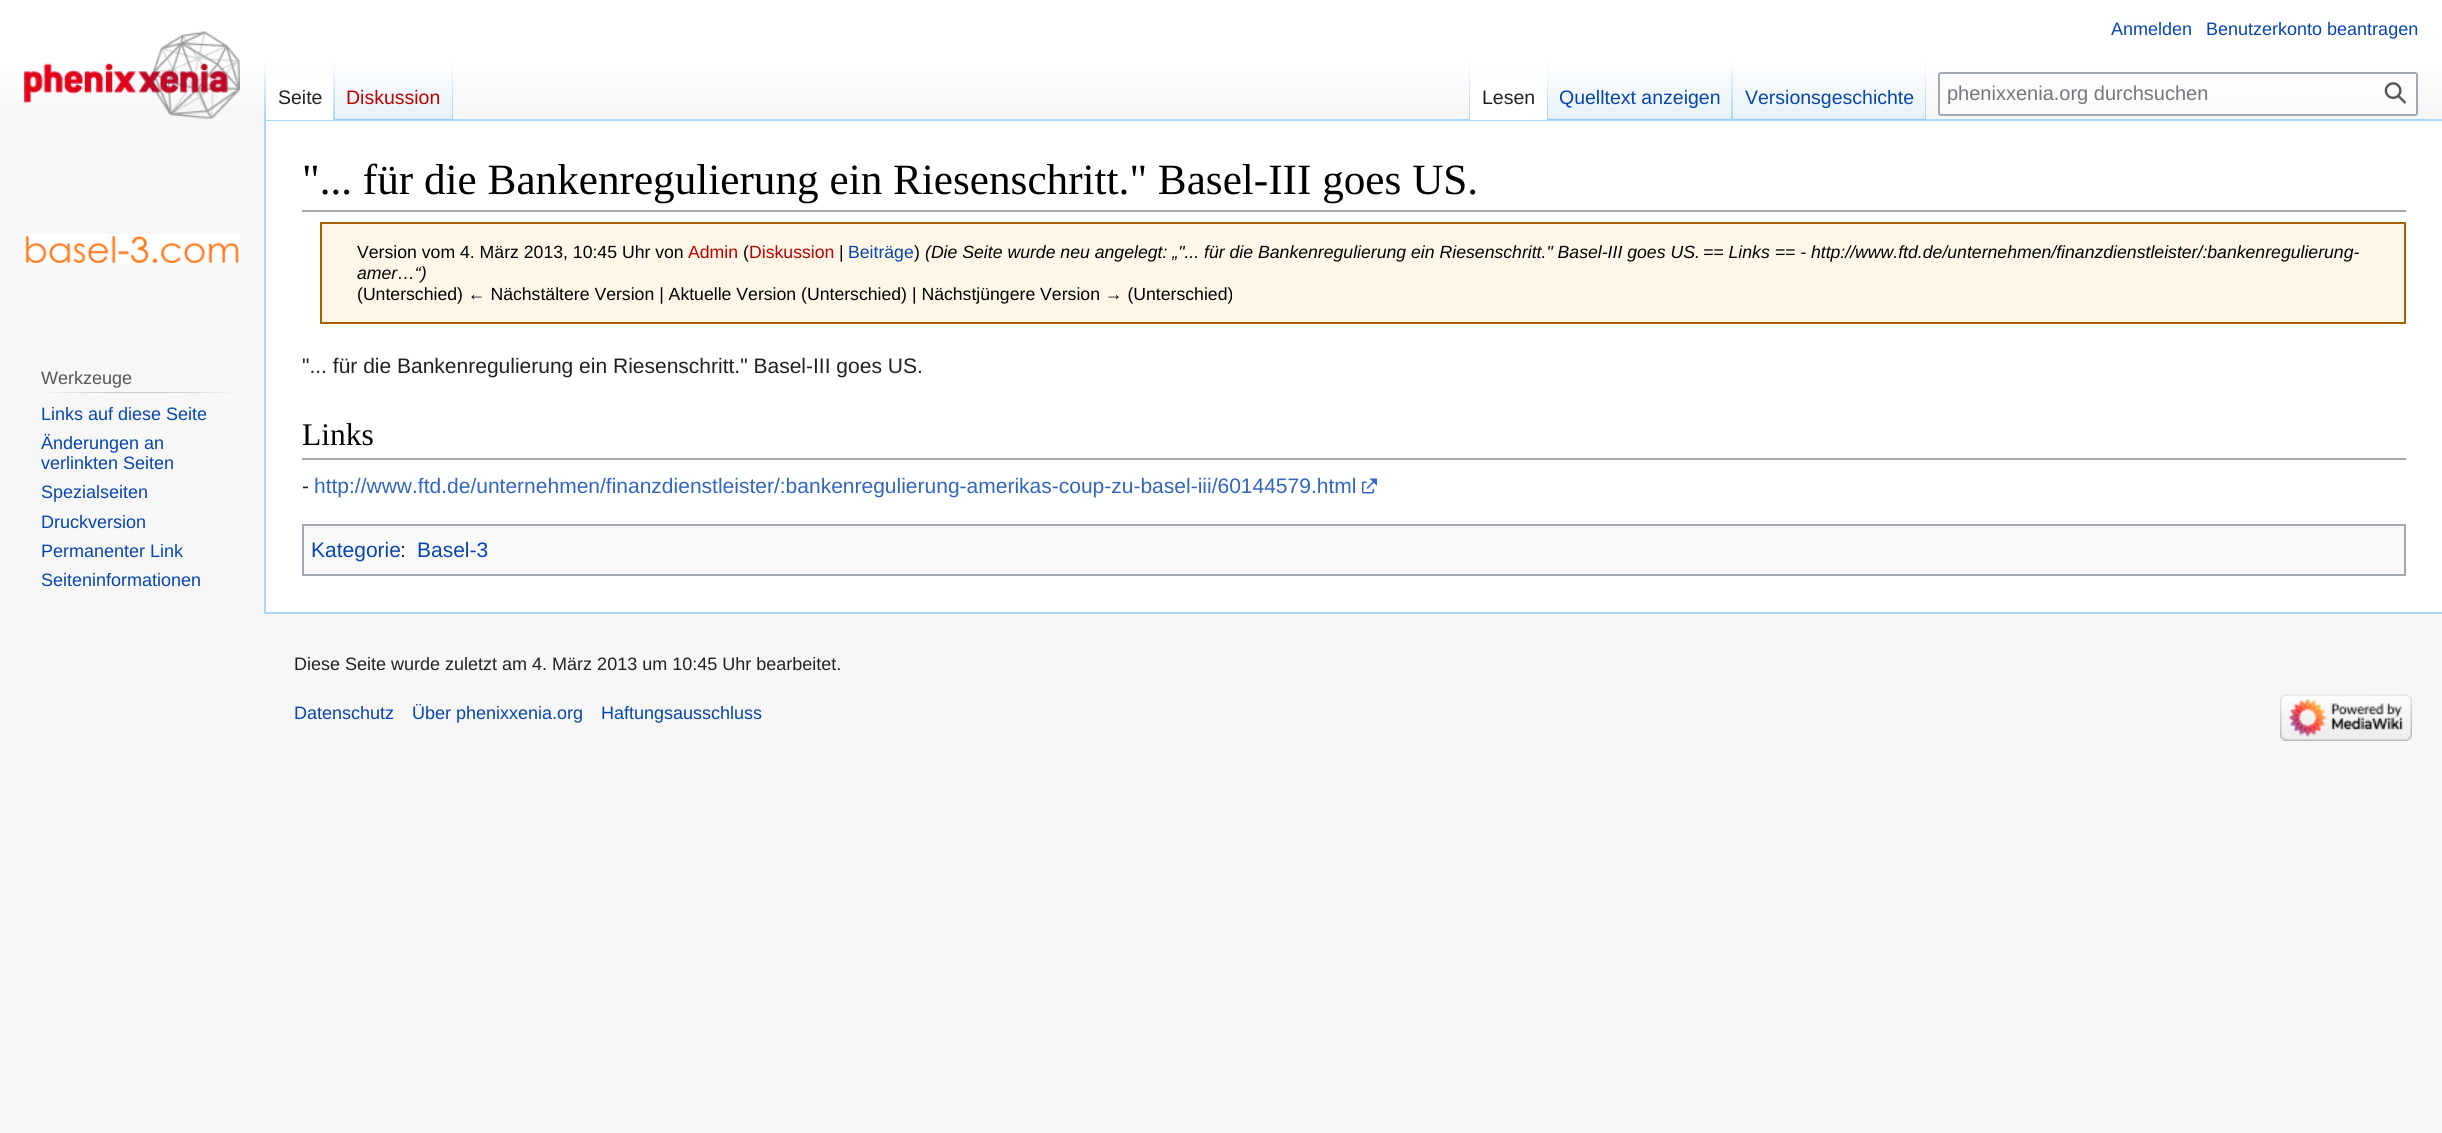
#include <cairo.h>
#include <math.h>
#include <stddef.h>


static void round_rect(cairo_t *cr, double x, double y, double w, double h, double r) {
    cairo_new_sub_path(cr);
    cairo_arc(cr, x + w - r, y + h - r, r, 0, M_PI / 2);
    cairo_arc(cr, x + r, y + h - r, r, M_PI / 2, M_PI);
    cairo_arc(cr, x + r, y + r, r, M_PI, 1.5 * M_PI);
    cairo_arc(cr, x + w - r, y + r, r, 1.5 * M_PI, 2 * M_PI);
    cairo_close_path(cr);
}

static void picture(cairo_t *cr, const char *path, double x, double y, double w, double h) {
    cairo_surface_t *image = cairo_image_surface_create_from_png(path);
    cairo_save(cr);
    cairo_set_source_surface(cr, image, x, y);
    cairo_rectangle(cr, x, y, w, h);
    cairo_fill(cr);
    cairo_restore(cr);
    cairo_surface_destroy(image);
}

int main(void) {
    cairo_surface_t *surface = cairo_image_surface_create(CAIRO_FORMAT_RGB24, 2442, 1133);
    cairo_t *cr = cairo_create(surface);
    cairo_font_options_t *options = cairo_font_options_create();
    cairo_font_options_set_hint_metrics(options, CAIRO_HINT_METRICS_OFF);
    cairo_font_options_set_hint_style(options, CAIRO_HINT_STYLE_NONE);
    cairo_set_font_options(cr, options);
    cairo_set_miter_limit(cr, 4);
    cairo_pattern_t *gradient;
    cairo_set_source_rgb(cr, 0.965, 0.965, 0.965);
    cairo_paint(cr);
    gradient = cairo_pattern_create_linear(1221, 0, 1221, 120);
    cairo_pattern_add_color_stop_rgba(gradient, 0.5, 1, 1, 1, 1);
    cairo_pattern_add_color_stop_rgba(gradient, 1, 0.965, 0.965, 0.965, 1);
    cairo_set_source(cr, gradient);
    cairo_pattern_destroy(gradient);
    cairo_rectangle(cr, 0, 0, 2442, 103);
    cairo_fill(cr);
    cairo_select_font_face(cr, "Liberation Sans", CAIRO_FONT_SLANT_NORMAL, CAIRO_FONT_WEIGHT_NORMAL);
    cairo_set_font_size(cr, 18);
    cairo_set_source_rgb(cr, 0.024, 0.271, 0.678);
    cairo_move_to(cr, 2111, 35);
    cairo_show_text(cr, "Anmelden");
    cairo_move_to(cr, 2206, 35);
    cairo_show_text(cr, "Benutzerkonto beantragen");
    cairo_set_source_rgb(cr, 0.655, 0.843, 0.976);
    cairo_rectangle(cr, 264, 119, 2178, 2);
    cairo_fill(cr);
    cairo_rectangle(cr, 264, 612, 2178, 2);
    cairo_fill(cr);
    cairo_rectangle(cr, 264, 119, 2, 495);
    cairo_fill(cr);
    gradient = cairo_pattern_create_linear(265, 60, 265, 120);
    cairo_pattern_add_color_stop_rgba(gradient, 0, 0.655, 0.843, 0.976, 0);
    cairo_pattern_add_color_stop_rgba(gradient, 1, 0.655, 0.843, 0.976, 1);
    cairo_set_source(cr, gradient);
    cairo_pattern_destroy(gradient);
    cairo_rectangle(cr, 264, 60, 2, 60);
    cairo_fill(cr);
    cairo_set_source_rgb(cr, 1, 1, 1);
    cairo_rectangle(cr, 266, 77, 67, 43);
    cairo_fill(cr);
    gradient = cairo_pattern_create_linear(334, 60, 334, 120);
    cairo_pattern_add_color_stop_rgba(gradient, 0, 1, 1, 1, 1);
    cairo_pattern_add_color_stop_rgba(gradient, 1, 0.655, 0.843, 0.976, 1);
    cairo_set_source(cr, gradient);
    cairo_pattern_destroy(gradient);
    cairo_rectangle(cr, 333, 60, 2, 60);
    cairo_fill(cr);
    cairo_set_font_size(cr, 19.5);
    cairo_set_source_rgb(cr, 0.125, 0.129, 0.133);
    cairo_move_to(cr, 278, 104);
    cairo_show_text(cr, "Seite");
    gradient = cairo_pattern_create_linear(394, 120, 394, 60);
    cairo_pattern_add_color_stop_rgba(gradient, 0, 0.467, 0.757, 0.965, 1);
    cairo_pattern_add_color_stop_rgba(gradient, 0.03, 0.91, 0.949, 0.973, 1);
    cairo_pattern_add_color_stop_rgba(gradient, 1, 1, 1, 1, 1);
    cairo_set_source(cr, gradient);
    cairo_pattern_destroy(gradient);
    cairo_rectangle(cr, 335, 69, 118, 51);
    cairo_fill(cr);
    gradient = cairo_pattern_create_linear(452, 60, 452, 120);
    cairo_pattern_add_color_stop_rgba(gradient, 0, 0.655, 0.843, 0.976, 0);
    cairo_pattern_add_color_stop_rgba(gradient, 1, 0.655, 0.843, 0.976, 1);
    cairo_set_source(cr, gradient);
    cairo_pattern_destroy(gradient);
    cairo_rectangle(cr, 452, 60, 1, 60);
    cairo_fill(cr);
    cairo_set_source_rgb(cr, 0.729, 0, 0);
    cairo_move_to(cr, 346, 104);
    cairo_show_text(cr, "Diskussion");
    gradient = cairo_pattern_create_linear(1469, 60, 1469, 120);
    cairo_pattern_add_color_stop_rgba(gradient, 0, 0.655, 0.843, 0.976, 0);
    cairo_pattern_add_color_stop_rgba(gradient, 1, 0.655, 0.843, 0.976, 1);
    cairo_set_source(cr, gradient);
    cairo_pattern_destroy(gradient);
    cairo_rectangle(cr, 1469, 60, 1, 60);
    cairo_fill(cr);
    cairo_set_source_rgb(cr, 1, 1, 1);
    cairo_rectangle(cr, 1470, 77, 77, 43);
    cairo_fill(cr);
    gradient = cairo_pattern_create_linear(1547, 60, 1547, 120);
    cairo_pattern_add_color_stop_rgba(gradient, 0, 1, 1, 1, 1);
    cairo_pattern_add_color_stop_rgba(gradient, 1, 0.655, 0.843, 0.976, 1);
    cairo_set_source(cr, gradient);
    cairo_pattern_destroy(gradient);
    cairo_rectangle(cr, 1547, 60, 1, 60);
    cairo_fill(cr);
    cairo_set_source_rgb(cr, 0.125, 0.129, 0.133);
    cairo_move_to(cr, 1482, 104);
    cairo_show_text(cr, "Lesen");
    gradient = cairo_pattern_create_linear(1640, 120, 1640, 60);
    cairo_pattern_add_color_stop_rgba(gradient, 0, 0.467, 0.757, 0.965, 1);
    cairo_pattern_add_color_stop_rgba(gradient, 0.03, 0.91, 0.949, 0.973, 1);
    cairo_pattern_add_color_stop_rgba(gradient, 1, 1, 1, 1, 1);
    cairo_set_source(cr, gradient);
    cairo_pattern_destroy(gradient);
    cairo_rectangle(cr, 1548, 69, 185, 51);
    cairo_fill(cr);
    gradient = cairo_pattern_create_linear(1732, 60, 1732, 120);
    cairo_pattern_add_color_stop_rgba(gradient, 0, 0.655, 0.843, 0.976, 0);
    cairo_pattern_add_color_stop_rgba(gradient, 1, 0.655, 0.843, 0.976, 1);
    cairo_set_source(cr, gradient);
    cairo_pattern_destroy(gradient);
    cairo_rectangle(cr, 1731, 60, 2, 60);
    cairo_fill(cr);
    cairo_set_source_rgb(cr, 0.024, 0.271, 0.678);
    cairo_move_to(cr, 1559, 104);
    cairo_show_text(cr, "Quelltext anzeigen");
    gradient = cairo_pattern_create_linear(1829, 120, 1829, 60);
    cairo_pattern_add_color_stop_rgba(gradient, 0, 0.467, 0.757, 0.965, 1);
    cairo_pattern_add_color_stop_rgba(gradient, 0.03, 0.91, 0.949, 0.973, 1);
    cairo_pattern_add_color_stop_rgba(gradient, 1, 1, 1, 1, 1);
    cairo_set_source(cr, gradient);
    cairo_pattern_destroy(gradient);
    cairo_rectangle(cr, 1733, 69, 193, 51);
    cairo_fill(cr);
    gradient = cairo_pattern_create_linear(1925, 60, 1925, 120);
    cairo_pattern_add_color_stop_rgba(gradient, 0, 0.655, 0.843, 0.976, 0);
    cairo_pattern_add_color_stop_rgba(gradient, 1, 0.655, 0.843, 0.976, 1);
    cairo_set_source(cr, gradient);
    cairo_pattern_destroy(gradient);
    cairo_rectangle(cr, 1925, 60, 1, 60);
    cairo_fill(cr);
    cairo_set_source_rgb(cr, 0.024, 0.271, 0.678);
    cairo_move_to(cr, 1745, 104);
    cairo_show_text(cr, "Versionsgeschichte");
    cairo_set_source_rgba(cr, 1, 1, 1, 0.5);
    round_rect(cr, 1939, 73, 478, 42, 2);
    cairo_fill_preserve(cr);
    cairo_set_source_rgb(cr, 0.635, 0.663, 0.694);
    cairo_stroke(cr);
    cairo_set_font_size(cr, 20);
    cairo_set_source_rgb(cr, 0.447, 0.467, 0.49);
    cairo_move_to(cr, 1947, 100);
    cairo_show_text(cr, "phenixxenia.org durchsuchen");
    picture(cr, "img1.png", 2384, 82, 23, 22);
    picture(cr, "img2.png", 24, 31, 216, 88);
    picture(cr, "img3.png", 24, 234, 216, 30);
    gradient = cairo_pattern_create_linear(41, 392, 237, 392);
    cairo_pattern_add_color_stop_rgba(gradient, 0, 0.965, 0.965, 0.965, 1);
    cairo_pattern_add_color_stop_rgba(gradient, 0.33, 0.784, 0.8, 0.82, 1);
    cairo_pattern_add_color_stop_rgba(gradient, 0.66, 0.784, 0.8, 0.82, 1);
    cairo_pattern_add_color_stop_rgba(gradient, 1, 0.965, 0.965, 0.965, 1);
    cairo_set_source(cr, gradient);
    cairo_pattern_destroy(gradient);
    cairo_rectangle(cr, 41, 392, 196, 1);
    cairo_fill(cr);
    cairo_set_font_size(cr, 18);
    cairo_set_source_rgb(cr, 0.329, 0.349, 0.365);
    cairo_move_to(cr, 41, 384);
    cairo_show_text(cr, "Werkzeuge");
    cairo_set_source_rgb(cr, 0.024, 0.271, 0.678);
    cairo_move_to(cr, 41, 420);
    cairo_show_text(cr, "Links auf diese Seite");
    cairo_move_to(cr, 41, 449);
    cairo_show_text(cr, "Änderungen an");
    cairo_move_to(cr, 41, 469);
    cairo_show_text(cr, "verlinkten Seiten");
    cairo_move_to(cr, 41, 498);
    cairo_show_text(cr, "Spezialseiten");
    cairo_move_to(cr, 41, 528);
    cairo_show_text(cr, "Druckversion");
    cairo_move_to(cr, 41, 557);
    cairo_show_text(cr, "Permanenter Link");
    cairo_move_to(cr, 41, 586);
    cairo_show_text(cr, "Seiteninformationen");
    cairo_set_source_rgb(cr, 1, 1, 1);
    cairo_rectangle(cr, 266, 121, 2176, 491);
    cairo_fill(cr);
    cairo_set_source_rgb(cr, 0.635, 0.663, 0.694);
    cairo_rectangle(cr, 302, 210, 2104, 2);
    cairo_fill(cr);
    cairo_select_font_face(cr, "Liberation Serif", CAIRO_FONT_SLANT_NORMAL, CAIRO_FONT_WEIGHT_NORMAL);
    cairo_set_font_size(cr, 43.2);
    cairo_set_source_rgb(cr, 0, 0, 0);
    cairo_move_to(cr, 302, 194);
    cairo_show_text(cr, "\"... für die Bankenregulierung ein Riesenschritt.\" Basel-III goes US.");
    cairo_set_source_rgb(cr, 0.996, 0.965, 0.906);
    cairo_rectangle(cr, 321, 223, 2084, 100);
    cairo_fill_preserve(cr);
    cairo_set_source_rgb(cr, 0.651, 0.384, 0);
    cairo_stroke(cr);
    cairo_select_font_face(cr, "Liberation Sans", CAIRO_FONT_SLANT_NORMAL, CAIRO_FONT_WEIGHT_NORMAL);
    cairo_set_font_size(cr, 17.65);
    cairo_set_source_rgb(cr, 0, 0, 0);
    cairo_move_to(cr, 357, 258);
    cairo_show_text(cr, "Version vom 4. März 2013, 10:45 Uhr von");
    cairo_set_source_rgb(cr, 0.729, 0, 0);
    cairo_move_to(cr, 688, 258);
    cairo_show_text(cr, "Admin");
    cairo_set_source_rgb(cr, 0, 0, 0);
    cairo_move_to(cr, 743, 258);
    cairo_show_text(cr, "(");
    cairo_set_source_rgb(cr, 0.729, 0, 0);
    cairo_move_to(cr, 749, 258);
    cairo_show_text(cr, "Diskussion");
    cairo_set_source_rgb(cr, 0, 0, 0);
    cairo_move_to(cr, 839, 258);
    cairo_show_text(cr, "|");
    cairo_set_source_rgb(cr, 0.024, 0.271, 0.678);
    cairo_move_to(cr, 848, 258);
    cairo_show_text(cr, "Beiträge");
    cairo_set_source_rgb(cr, 0, 0, 0);
    cairo_move_to(cr, 914, 258);
    cairo_show_text(cr, ")");
    cairo_select_font_face(cr, "Liberation Sans", CAIRO_FONT_SLANT_ITALIC, CAIRO_FONT_WEIGHT_NORMAL);
    cairo_move_to(cr, 925, 258);
    cairo_show_text(cr, "(Die Seite wurde neu angelegt: „\"... für die Bankenregulierung ein Riesenschritt.\" Basel-III goes US.");
    cairo_move_to(cr, 1703, 258);
    cairo_show_text(cr, "== Links == - http://www.ftd.de/unternehmen/finanzdienstleister/:bankenregulierung-");
    cairo_move_to(cr, 357, 279);
    cairo_show_text(cr, "amer…“)");
    cairo_select_font_face(cr, "Liberation Sans", CAIRO_FONT_SLANT_NORMAL, CAIRO_FONT_WEIGHT_NORMAL);
    cairo_move_to(cr, 357, 300);
    cairo_show_text(cr, "(Unterschied) ← Nächstältere Version | Aktuelle Version (Unterschied) | Nächstjüngere Version → (Unterschied)");
    cairo_set_font_size(cr, 21);
    cairo_set_source_rgb(cr, 0.125, 0.129, 0.133);
    cairo_move_to(cr, 302, 373);
    cairo_show_text(cr, "\"... für die Bankenregulierung ein Riesenschritt.\" Basel-III goes US.");
    cairo_set_source_rgb(cr, 0.635, 0.663, 0.694);
    cairo_rectangle(cr, 302, 458, 2104, 2);
    cairo_fill(cr);
    cairo_select_font_face(cr, "Liberation Serif", CAIRO_FONT_SLANT_NORMAL, CAIRO_FONT_WEIGHT_NORMAL);
    cairo_set_font_size(cr, 31.5);
    cairo_set_source_rgb(cr, 0, 0, 0);
    cairo_move_to(cr, 302, 445);
    cairo_show_text(cr, "Links");
    cairo_select_font_face(cr, "Liberation Sans", CAIRO_FONT_SLANT_NORMAL, CAIRO_FONT_WEIGHT_NORMAL);
    cairo_set_font_size(cr, 21);
    cairo_set_source_rgb(cr, 0.125, 0.129, 0.133);
    cairo_move_to(cr, 302, 493);
    cairo_show_text(cr, "-");
    cairo_set_source_rgb(cr, 0.2, 0.4, 0.733);
    cairo_move_to(cr, 314, 493);
    cairo_show_text(cr, "http://www.ftd.de/unternehmen/finanzdienstleister/:bankenregulierung-amerikas-coup-zu-basel-iii/60144579.html");
    picture(cr, "img4.png", 1362, 478, 15, 16);
    cairo_set_source_rgb(cr, 0.973, 0.976, 0.98);
    cairo_rectangle(cr, 303, 525, 2102, 50);
    cairo_fill_preserve(cr);
    cairo_set_source_rgb(cr, 0.635, 0.663, 0.694);
    cairo_stroke(cr);
    cairo_set_source_rgb(cr, 0.024, 0.271, 0.678);
    cairo_move_to(cr, 311, 557);
    cairo_show_text(cr, "Kategorie");
    cairo_set_source_rgb(cr, 0.125, 0.129, 0.133);
    cairo_move_to(cr, 400, 557);
    cairo_show_text(cr, ":");
    cairo_set_source_rgb(cr, 0.024, 0.271, 0.678);
    cairo_move_to(cr, 417, 557);
    cairo_show_text(cr, "Basel-3");
    cairo_set_font_size(cr, 18);
    cairo_set_source_rgb(cr, 0.125, 0.129, 0.133);
    cairo_move_to(cr, 294, 670);
    cairo_show_text(cr, "Diese Seite wurde zuletzt am 4. März 2013 um 10:45 Uhr bearbeitet.");
    cairo_set_source_rgb(cr, 0.024, 0.271, 0.678);
    cairo_move_to(cr, 294, 719);
    cairo_show_text(cr, "Datenschutz");
    cairo_move_to(cr, 412, 719);
    cairo_show_text(cr, "Über phenixxenia.org");
    cairo_move_to(cr, 601, 719);
    cairo_show_text(cr, "Haftungsausschluss");
    picture(cr, "img5.png", 2280, 694, 132, 47);
    cairo_surface_write_to_png(surface, "page.png");
    cairo_font_options_destroy(options);
    cairo_destroy(cr);
    cairo_surface_destroy(surface);
    return 0;
}
